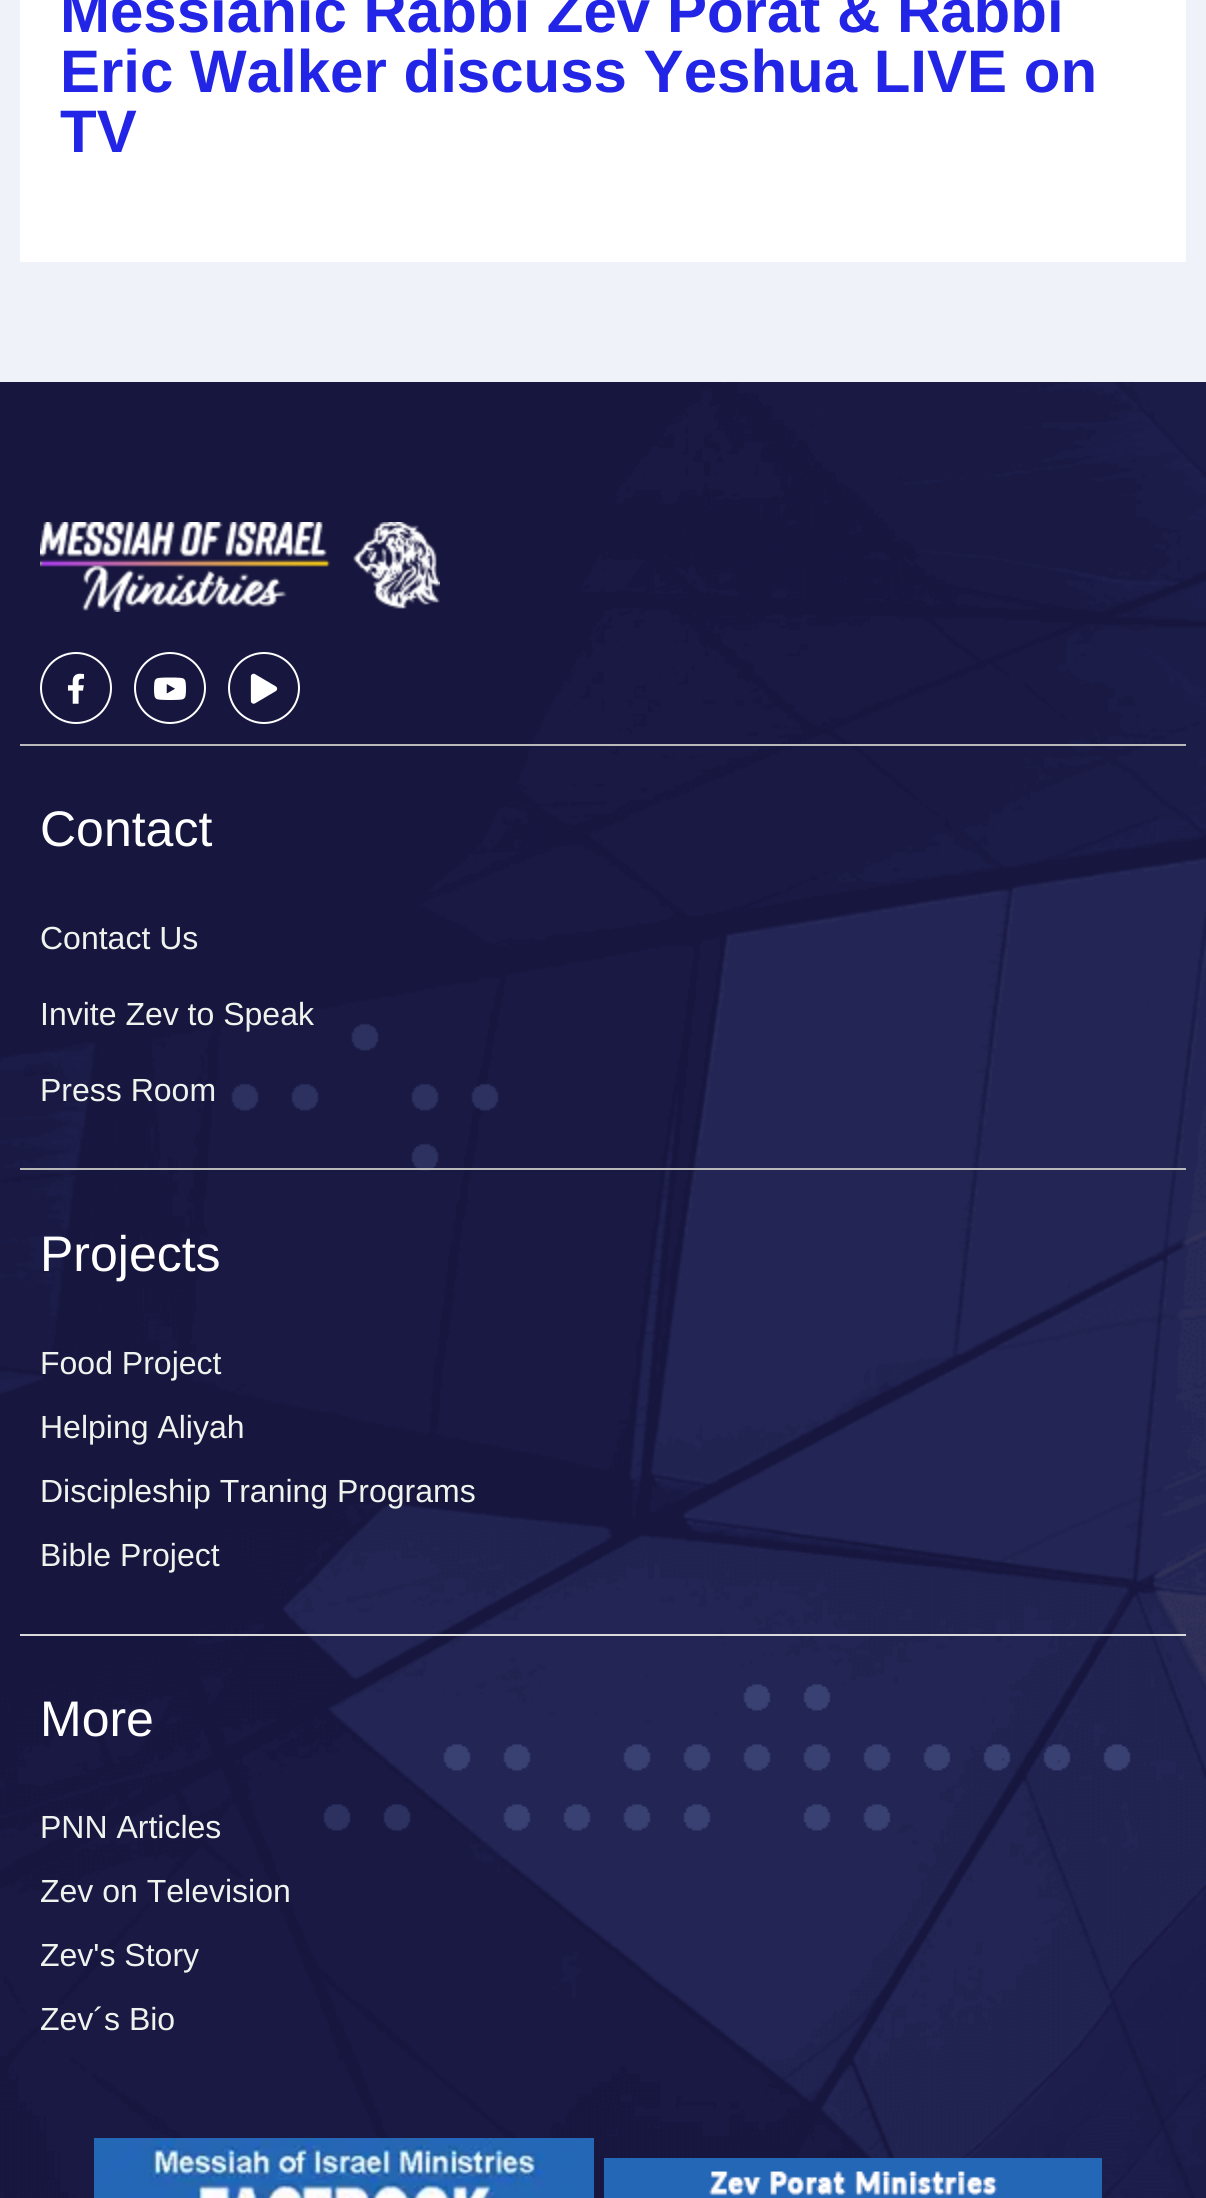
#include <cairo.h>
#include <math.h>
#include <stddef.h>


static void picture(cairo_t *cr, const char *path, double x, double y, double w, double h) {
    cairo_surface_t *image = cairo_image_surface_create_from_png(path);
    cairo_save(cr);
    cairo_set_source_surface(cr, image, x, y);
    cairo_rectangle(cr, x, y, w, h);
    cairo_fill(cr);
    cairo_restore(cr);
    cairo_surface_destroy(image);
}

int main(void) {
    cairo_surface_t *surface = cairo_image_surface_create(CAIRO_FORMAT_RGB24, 1206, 2198);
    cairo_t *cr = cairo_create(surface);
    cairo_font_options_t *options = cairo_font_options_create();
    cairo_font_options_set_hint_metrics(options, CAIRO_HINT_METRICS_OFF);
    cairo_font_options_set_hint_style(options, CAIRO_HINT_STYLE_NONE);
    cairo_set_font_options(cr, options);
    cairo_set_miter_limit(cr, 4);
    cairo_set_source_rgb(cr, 0.937, 0.949, 0.973);
    cairo_paint(cr);
    cairo_set_source_rgb(cr, 1, 1, 1);
    cairo_rectangle(cr, 20, 0, 1166, 262);
    cairo_fill(cr);
    cairo_select_font_face(cr, "Liberation Sans", CAIRO_FONT_SLANT_NORMAL, CAIRO_FONT_WEIGHT_BOLD);
    cairo_set_font_size(cr, 60);
    cairo_set_source_rgb(cr, 0.133, 0.145, 0.898);
    cairo_move_to(cr, 60, 32);
    cairo_show_text(cr, "Messianic Rabbi Zev Porat & Rabbi");
    cairo_move_to(cr, 60, 92);
    cairo_show_text(cr, "Eric Walker discuss Yeshua LIVE on");
    cairo_move_to(cr, 60, 152);
    cairo_show_text(cr, "TV");
    cairo_set_source_rgb(cr, 0.09, 0.086, 0.259);
    cairo_rectangle(cr, 0, 382, 1206, 1816);
    cairo_fill(cr);
    picture(cr, "img1.png", 0, 382, 1206, 1816);
    picture(cr, "img2.png", 40, 522, 400, 90);
    cairo_arc(cr, 76, 688, 35, 0, 2 * M_PI);
    cairo_set_source_rgb(cr, 1, 1, 1);
    cairo_stroke(cr);
    picture(cr, "img3.png", 67, 673, 18, 31);
    cairo_arc(cr, 170, 688, 35, 0, 2 * M_PI);
    cairo_stroke(cr);
    picture(cr, "img4.png", 154, 677, 32, 23);
    cairo_arc(cr, 264, 688, 35, 0, 2 * M_PI);
    cairo_stroke(cr);
    picture(cr, "img5.png", 250, 673, 28, 31);
    cairo_set_source_rgb(cr, 0.725, 0.725, 0.725);
    cairo_rectangle(cr, 20, 744, 1166, 2);
    cairo_fill(cr);
    cairo_select_font_face(cr, "Liberation Sans", CAIRO_FONT_SLANT_NORMAL, CAIRO_FONT_WEIGHT_NORMAL);
    cairo_set_font_size(cr, 50);
    cairo_set_source_rgb(cr, 1, 1, 1);
    cairo_move_to(cr, 40, 846);
    cairo_show_text(cr, "Contact");
    cairo_set_font_size(cr, 32);
    cairo_set_source_rgb(cr, 0.933, 0.957, 0.929);
    cairo_move_to(cr, 40, 949);
    cairo_show_text(cr, "Contact Us");
    cairo_move_to(cr, 40, 1025);
    cairo_show_text(cr, "Invite Zev to Speak");
    cairo_move_to(cr, 40, 1101);
    cairo_show_text(cr, "Press Room");
    cairo_set_source_rgb(cr, 0.725, 0.725, 0.725);
    cairo_rectangle(cr, 20, 1168, 1166, 2);
    cairo_fill(cr);
    cairo_set_font_size(cr, 50);
    cairo_set_source_rgb(cr, 1, 1, 1);
    cairo_move_to(cr, 40, 1271);
    cairo_show_text(cr, "Projects");
    cairo_set_font_size(cr, 32);
    cairo_set_source_rgb(cr, 0.933, 0.957, 0.929);
    cairo_move_to(cr, 40, 1374);
    cairo_show_text(cr, "Food Project");
    cairo_move_to(cr, 40, 1438);
    cairo_show_text(cr, "Helping Aliyah");
    cairo_move_to(cr, 40, 1502);
    cairo_show_text(cr, "Discipleship Traning Programs");
    cairo_move_to(cr, 40, 1566);
    cairo_show_text(cr, "Bible Project");
    cairo_set_source_rgb(cr, 0.855, 0.855, 0.855);
    cairo_rectangle(cr, 20, 1634, 1166, 2);
    cairo_fill(cr);
    cairo_set_font_size(cr, 50);
    cairo_set_source_rgb(cr, 1, 1, 1);
    cairo_move_to(cr, 40, 1736);
    cairo_show_text(cr, "More");
    cairo_set_font_size(cr, 32);
    cairo_set_source_rgb(cr, 0.933, 0.957, 0.929);
    cairo_move_to(cr, 40, 1838);
    cairo_show_text(cr, "PNN Articles");
    cairo_move_to(cr, 40, 1902);
    cairo_show_text(cr, "Zev on Television");
    cairo_move_to(cr, 40, 1966);
    cairo_show_text(cr, "Zev's Story");
    cairo_move_to(cr, 40, 2030);
    cairo_show_text(cr, "Zev´s Bio");
    picture(cr, "img6.png", 94, 2138, 500, 60);
    picture(cr, "img7.png", 604, 2158, 498, 40);
    cairo_surface_write_to_png(surface, "page.png");
    cairo_font_options_destroy(options);
    cairo_destroy(cr);
    cairo_surface_destroy(surface);
    return 0;
}
